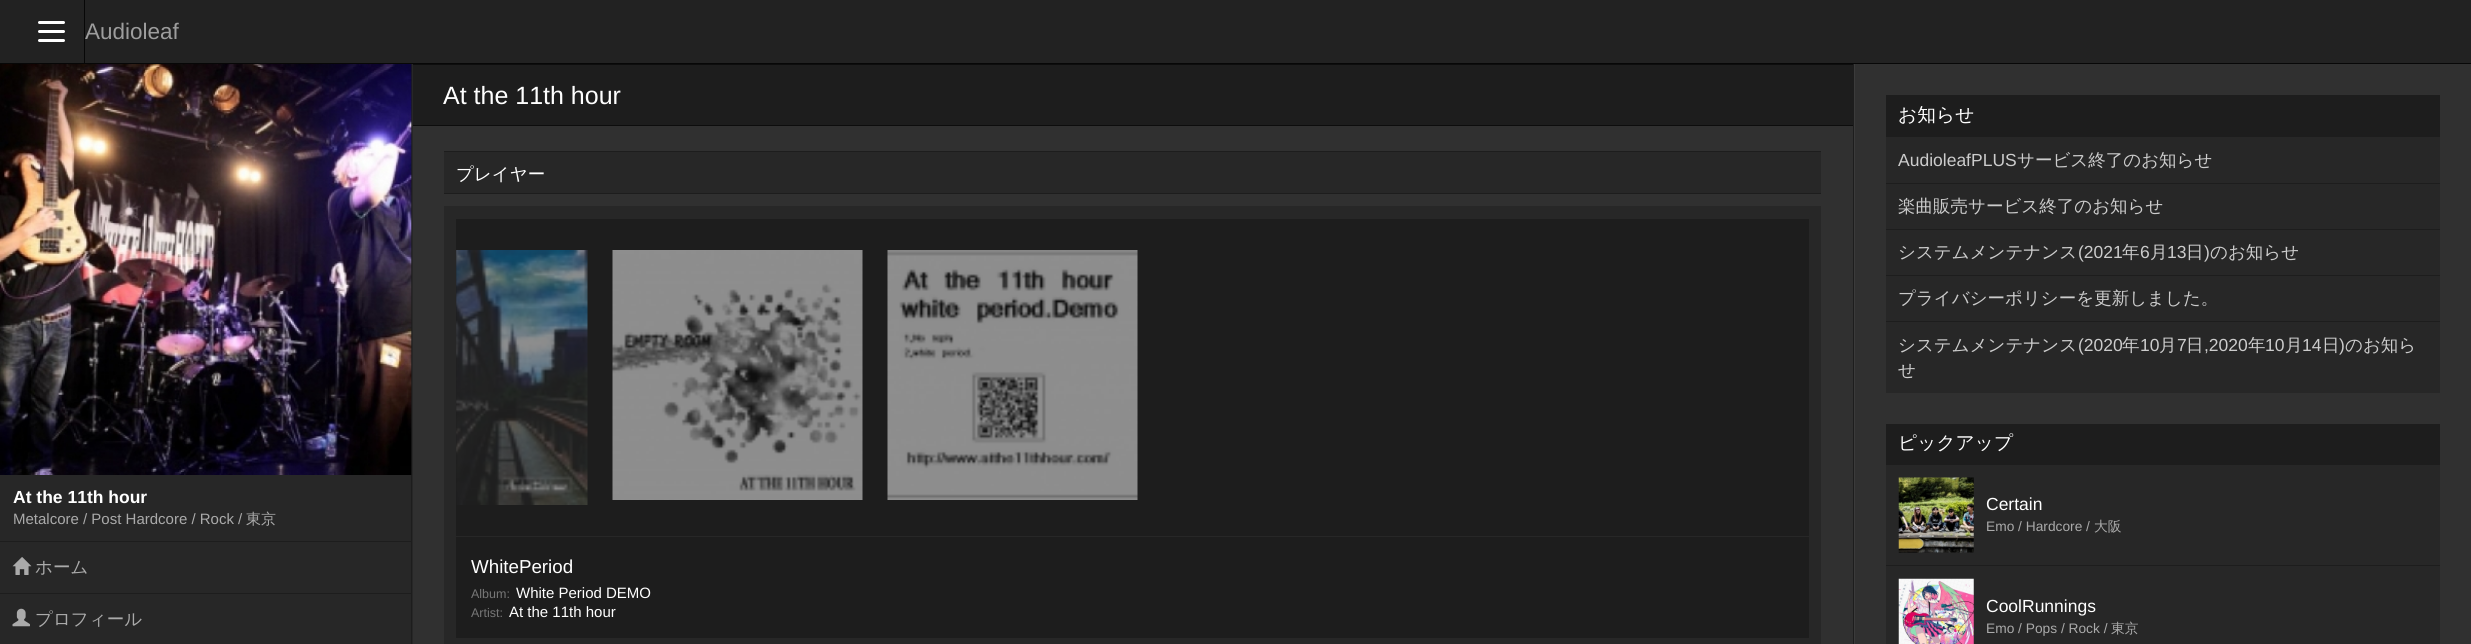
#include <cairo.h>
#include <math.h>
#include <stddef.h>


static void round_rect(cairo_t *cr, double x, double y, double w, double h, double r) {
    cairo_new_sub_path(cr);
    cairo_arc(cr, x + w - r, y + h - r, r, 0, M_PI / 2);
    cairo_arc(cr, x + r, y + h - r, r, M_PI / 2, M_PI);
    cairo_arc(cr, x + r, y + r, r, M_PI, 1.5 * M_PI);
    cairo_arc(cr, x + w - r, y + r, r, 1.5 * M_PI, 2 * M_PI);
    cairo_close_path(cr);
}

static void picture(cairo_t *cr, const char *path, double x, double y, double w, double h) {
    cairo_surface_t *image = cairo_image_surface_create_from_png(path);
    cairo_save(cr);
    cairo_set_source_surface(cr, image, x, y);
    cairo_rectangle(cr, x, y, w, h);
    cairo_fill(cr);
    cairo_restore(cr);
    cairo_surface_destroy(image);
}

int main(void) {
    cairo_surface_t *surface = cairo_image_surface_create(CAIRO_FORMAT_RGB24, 2471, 644);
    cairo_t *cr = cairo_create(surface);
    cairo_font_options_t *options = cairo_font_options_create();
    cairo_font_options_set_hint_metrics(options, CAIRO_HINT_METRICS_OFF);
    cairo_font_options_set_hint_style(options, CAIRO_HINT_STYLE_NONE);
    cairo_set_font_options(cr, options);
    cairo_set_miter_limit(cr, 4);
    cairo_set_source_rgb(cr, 0.188, 0.188, 0.188);
    cairo_paint(cr);
    cairo_set_source_rgb(cr, 0.133, 0.133, 0.133);
    cairo_rectangle(cr, 0, 0, 2471, 63);
    cairo_fill(cr);
    cairo_set_source_rgb(cr, 0.031, 0.031, 0.031);
    cairo_rectangle(cr, 0, 63, 2471, 1);
    cairo_fill(cr);
    cairo_rectangle(cr, 84, 0, 1, 63);
    cairo_fill(cr);
    cairo_set_source_rgb(cr, 1, 1, 1);
    round_rect(cr, 38, 21, 27, 3, 1.5);
    cairo_fill(cr);
    round_rect(cr, 38, 30, 27, 3, 1.5);
    cairo_fill(cr);
    round_rect(cr, 38, 39, 27, 3, 1.5);
    cairo_fill(cr);
    cairo_select_font_face(cr, "Liberation Sans", CAIRO_FONT_SLANT_NORMAL, CAIRO_FONT_WEIGHT_NORMAL);
    cairo_set_font_size(cr, 22.5);
    cairo_set_source_rgb(cr, 0.616, 0.616, 0.616);
    cairo_move_to(cr, 85, 39);
    cairo_show_text(cr, "Audioleaf");
    cairo_set_source_rgb(cr, 0.153, 0.153, 0.153);
    cairo_rectangle(cr, 0, 64, 413, 580);
    cairo_fill(cr);
    cairo_set_source_rgb(cr, 0.114, 0.114, 0.114);
    cairo_rectangle(cr, 411, 64, 1, 580);
    cairo_fill(cr);
    cairo_rectangle(cr, 0, 541, 411, 1);
    cairo_fill(cr);
    picture(cr, "img1.png", 0, 64, 412, 411);
    cairo_select_font_face(cr, "Liberation Sans", CAIRO_FONT_SLANT_NORMAL, CAIRO_FONT_WEIGHT_BOLD);
    cairo_set_font_size(cr, 17.5);
    cairo_set_source_rgb(cr, 1, 1, 1);
    cairo_move_to(cr, 13, 503);
    cairo_show_text(cr, "At the 11th hour");
    cairo_select_font_face(cr, "Liberation Sans", CAIRO_FONT_SLANT_NORMAL, CAIRO_FONT_WEIGHT_NORMAL);
    cairo_set_font_size(cr, 15);
    cairo_set_source_rgb(cr, 0.667, 0.667, 0.667);
    cairo_move_to(cr, 13, 524);
    cairo_show_text(cr, "Metalcore / Post Hardcore / Rock /");
    cairo_select_font_face(cr, "WenQuanYi Zen Hei Medium", CAIRO_FONT_SLANT_NORMAL, CAIRO_FONT_WEIGHT_NORMAL);
    cairo_move_to(cr, 246, 524);
    cairo_show_text(cr, "東京");
    cairo_set_source_rgb(cr, 0.114, 0.114, 0.114);
    cairo_rectangle(cr, 0, 593, 411, 1);
    cairo_fill(cr);
    picture(cr, "img2.png", 12, 557, 20, 18);
    cairo_set_font_size(cr, 17.5);
    cairo_set_source_rgb(cr, 0.667, 0.667, 0.667);
    cairo_move_to(cr, 35, 573);
    cairo_show_text(cr, "ホーム");
    picture(cr, "img3.png", 12, 608, 18, 19);
    cairo_move_to(cr, 35, 625);
    cairo_show_text(cr, "プロフィール");
    cairo_set_source_rgb(cr, 0.114, 0.114, 0.114);
    cairo_rectangle(cr, 1853, 64, 1, 580);
    cairo_fill(cr);
    cairo_rectangle(cr, 413, 65, 1440, 60);
    cairo_fill(cr);
    cairo_set_source_rgb(cr, 0.051, 0.051, 0.051);
    cairo_rectangle(cr, 413, 64, 1440, 1);
    cairo_fill(cr);
    cairo_rectangle(cr, 413, 125, 1440, 1);
    cairo_fill(cr);
    cairo_select_font_face(cr, "Liberation Sans", CAIRO_FONT_SLANT_NORMAL, CAIRO_FONT_WEIGHT_NORMAL);
    cairo_set_font_size(cr, 25);
    cairo_set_source_rgb(cr, 1, 1, 1);
    cairo_move_to(cr, 443, 104);
    cairo_show_text(cr, "At the 11th hour");
    cairo_set_source_rgb(cr, 0.153, 0.153, 0.153);
    cairo_rectangle(cr, 444, 152, 1377, 41);
    cairo_fill(cr);
    cairo_set_source_rgb(cr, 0.114, 0.114, 0.114);
    cairo_rectangle(cr, 444, 151, 1377, 1);
    cairo_fill(cr);
    cairo_rectangle(cr, 444, 193, 1377, 1);
    cairo_fill(cr);
    cairo_select_font_face(cr, "WenQuanYi Zen Hei Medium", CAIRO_FONT_SLANT_NORMAL, CAIRO_FONT_WEIGHT_NORMAL);
    cairo_set_font_size(cr, 17.5);
    cairo_set_source_rgb(cr, 1, 1, 1);
    cairo_move_to(cr, 456, 180);
    cairo_show_text(cr, "プレイヤー");
    cairo_set_source_rgb(cr, 0.153, 0.153, 0.153);
    cairo_rectangle(cr, 444, 206, 1377, 438);
    cairo_fill(cr);
    cairo_set_source_rgb(cr, 0.114, 0.114, 0.114);
    cairo_rectangle(cr, 456, 219, 1353, 419);
    cairo_fill(cr);
    cairo_set_source_rgb(cr, 0.153, 0.153, 0.153);
    cairo_rectangle(cr, 456, 536, 1353, 1);
    cairo_fill(cr);
    picture(cr, "img4.png", 456, 250, 132, 255);
    picture(cr, "img5.png", 612, 250, 251, 250);
    picture(cr, "img6.png", 887, 250, 251, 250);
    cairo_select_font_face(cr, "Liberation Sans", CAIRO_FONT_SLANT_NORMAL, CAIRO_FONT_WEIGHT_NORMAL);
    cairo_set_font_size(cr, 18.75);
    cairo_set_source_rgb(cr, 1, 1, 1);
    cairo_move_to(cr, 471, 573);
    cairo_show_text(cr, "WhitePeriod");
    cairo_set_font_size(cr, 12.5);
    cairo_set_source_rgb(cr, 0.467, 0.467, 0.467);
    cairo_move_to(cr, 471, 598);
    cairo_show_text(cr, "Album:");
    cairo_set_font_size(cr, 15);
    cairo_set_source_rgb(cr, 1, 1, 1);
    cairo_move_to(cr, 516, 598);
    cairo_show_text(cr, "White Period DEMO");
    cairo_set_font_size(cr, 12.5);
    cairo_set_source_rgb(cr, 0.467, 0.467, 0.467);
    cairo_move_to(cr, 471, 617);
    cairo_show_text(cr, "Artist:");
    cairo_set_font_size(cr, 15);
    cairo_set_source_rgb(cr, 1, 1, 1);
    cairo_move_to(cr, 509, 617);
    cairo_show_text(cr, "At the 11th hour");
    cairo_set_source_rgb(cr, 0.231, 0.231, 0.231);
    cairo_rectangle(cr, 1854, 64, 1, 580);
    cairo_fill(cr);
    cairo_set_source_rgb(cr, 0.114, 0.114, 0.114);
    cairo_rectangle(cr, 1886, 95, 554, 42);
    cairo_fill(cr);
    cairo_select_font_face(cr, "WenQuanYi Zen Hei Medium", CAIRO_FONT_SLANT_NORMAL, CAIRO_FONT_WEIGHT_NORMAL);
    cairo_set_font_size(cr, 18.75);
    cairo_set_source_rgb(cr, 1, 1, 1);
    cairo_move_to(cr, 1898, 121);
    cairo_show_text(cr, "お知らせ");
    cairo_set_source_rgb(cr, 0.153, 0.153, 0.153);
    cairo_rectangle(cr, 1886, 137, 554, 46);
    cairo_fill(cr);
    cairo_select_font_face(cr, "Liberation Sans", CAIRO_FONT_SLANT_NORMAL, CAIRO_FONT_WEIGHT_NORMAL);
    cairo_set_font_size(cr, 17.5);
    cairo_set_source_rgb(cr, 0.8, 0.8, 0.8);
    cairo_move_to(cr, 1898, 166);
    cairo_show_text(cr, "AudioleafPLUS");
    cairo_select_font_face(cr, "WenQuanYi Zen Hei Medium", CAIRO_FONT_SLANT_NORMAL, CAIRO_FONT_WEIGHT_NORMAL);
    cairo_move_to(cr, 2017, 166);
    cairo_show_text(cr, "サービス終了のお知らせ");
    cairo_set_source_rgb(cr, 0.153, 0.153, 0.153);
    cairo_rectangle(cr, 1886, 184, 554, 45);
    cairo_fill(cr);
    cairo_set_source_rgb(cr, 0.114, 0.114, 0.114);
    cairo_rectangle(cr, 1886, 183, 554, 1);
    cairo_fill(cr);
    cairo_set_source_rgb(cr, 0.8, 0.8, 0.8);
    cairo_move_to(cr, 1898, 212);
    cairo_show_text(cr, "楽曲販売サービス終了のお知らせ");
    cairo_set_source_rgb(cr, 0.153, 0.153, 0.153);
    cairo_rectangle(cr, 1886, 230, 554, 45);
    cairo_fill(cr);
    cairo_set_source_rgb(cr, 0.114, 0.114, 0.114);
    cairo_rectangle(cr, 1886, 229, 554, 1);
    cairo_fill(cr);
    cairo_set_source_rgb(cr, 0.8, 0.8, 0.8);
    cairo_move_to(cr, 1898, 258);
    cairo_show_text(cr, "システムメンテナンス");
    cairo_select_font_face(cr, "Liberation Sans", CAIRO_FONT_SLANT_NORMAL, CAIRO_FONT_WEIGHT_NORMAL);
    cairo_move_to(cr, 2078, 258);
    cairo_show_text(cr, "(2021");
    cairo_select_font_face(cr, "WenQuanYi Zen Hei Medium", CAIRO_FONT_SLANT_NORMAL, CAIRO_FONT_WEIGHT_NORMAL);
    cairo_move_to(cr, 2122, 258);
    cairo_show_text(cr, "年");
    cairo_select_font_face(cr, "Liberation Sans", CAIRO_FONT_SLANT_NORMAL, CAIRO_FONT_WEIGHT_NORMAL);
    cairo_move_to(cr, 2140, 258);
    cairo_show_text(cr, "6");
    cairo_select_font_face(cr, "WenQuanYi Zen Hei Medium", CAIRO_FONT_SLANT_NORMAL, CAIRO_FONT_WEIGHT_NORMAL);
    cairo_move_to(cr, 2150, 258);
    cairo_show_text(cr, "月");
    cairo_select_font_face(cr, "Liberation Sans", CAIRO_FONT_SLANT_NORMAL, CAIRO_FONT_WEIGHT_NORMAL);
    cairo_move_to(cr, 2167, 258);
    cairo_show_text(cr, "13");
    cairo_select_font_face(cr, "WenQuanYi Zen Hei Medium", CAIRO_FONT_SLANT_NORMAL, CAIRO_FONT_WEIGHT_NORMAL);
    cairo_move_to(cr, 2186, 258);
    cairo_show_text(cr, "日");
    cairo_select_font_face(cr, "Liberation Sans", CAIRO_FONT_SLANT_NORMAL, CAIRO_FONT_WEIGHT_NORMAL);
    cairo_move_to(cr, 2204, 258);
    cairo_show_text(cr, ")");
    cairo_select_font_face(cr, "WenQuanYi Zen Hei Medium", CAIRO_FONT_SLANT_NORMAL, CAIRO_FONT_WEIGHT_NORMAL);
    cairo_move_to(cr, 2210, 258);
    cairo_show_text(cr, "のお知らせ");
    cairo_set_source_rgb(cr, 0.153, 0.153, 0.153);
    cairo_rectangle(cr, 1886, 276, 554, 45);
    cairo_fill(cr);
    cairo_set_source_rgb(cr, 0.114, 0.114, 0.114);
    cairo_rectangle(cr, 1886, 275, 554, 1);
    cairo_fill(cr);
    cairo_set_source_rgb(cr, 0.8, 0.8, 0.8);
    cairo_move_to(cr, 1898, 304);
    cairo_show_text(cr, "プライバシーポリシーを更新しました。");
    cairo_set_source_rgb(cr, 0.153, 0.153, 0.153);
    cairo_rectangle(cr, 1886, 322, 554, 71);
    cairo_fill(cr);
    cairo_set_source_rgb(cr, 0.114, 0.114, 0.114);
    cairo_rectangle(cr, 1886, 321, 554, 1);
    cairo_fill(cr);
    cairo_set_source_rgb(cr, 0.8, 0.8, 0.8);
    cairo_move_to(cr, 1898, 351);
    cairo_show_text(cr, "システムメンテナンス");
    cairo_select_font_face(cr, "Liberation Sans", CAIRO_FONT_SLANT_NORMAL, CAIRO_FONT_WEIGHT_NORMAL);
    cairo_move_to(cr, 2078, 351);
    cairo_show_text(cr, "(2020");
    cairo_select_font_face(cr, "WenQuanYi Zen Hei Medium", CAIRO_FONT_SLANT_NORMAL, CAIRO_FONT_WEIGHT_NORMAL);
    cairo_move_to(cr, 2122, 351);
    cairo_show_text(cr, "年");
    cairo_select_font_face(cr, "Liberation Sans", CAIRO_FONT_SLANT_NORMAL, CAIRO_FONT_WEIGHT_NORMAL);
    cairo_move_to(cr, 2140, 351);
    cairo_show_text(cr, "10");
    cairo_select_font_face(cr, "WenQuanYi Zen Hei Medium", CAIRO_FONT_SLANT_NORMAL, CAIRO_FONT_WEIGHT_NORMAL);
    cairo_move_to(cr, 2159, 351);
    cairo_show_text(cr, "月");
    cairo_select_font_face(cr, "Liberation Sans", CAIRO_FONT_SLANT_NORMAL, CAIRO_FONT_WEIGHT_NORMAL);
    cairo_move_to(cr, 2177, 351);
    cairo_show_text(cr, "7");
    cairo_select_font_face(cr, "WenQuanYi Zen Hei Medium", CAIRO_FONT_SLANT_NORMAL, CAIRO_FONT_WEIGHT_NORMAL);
    cairo_move_to(cr, 2186, 351);
    cairo_show_text(cr, "日");
    cairo_select_font_face(cr, "Liberation Sans", CAIRO_FONT_SLANT_NORMAL, CAIRO_FONT_WEIGHT_NORMAL);
    cairo_move_to(cr, 2204, 351);
    cairo_show_text(cr, ",2020");
    cairo_select_font_face(cr, "WenQuanYi Zen Hei Medium", CAIRO_FONT_SLANT_NORMAL, CAIRO_FONT_WEIGHT_NORMAL);
    cairo_move_to(cr, 2248, 351);
    cairo_show_text(cr, "年");
    cairo_select_font_face(cr, "Liberation Sans", CAIRO_FONT_SLANT_NORMAL, CAIRO_FONT_WEIGHT_NORMAL);
    cairo_move_to(cr, 2265, 351);
    cairo_show_text(cr, "10");
    cairo_select_font_face(cr, "WenQuanYi Zen Hei Medium", CAIRO_FONT_SLANT_NORMAL, CAIRO_FONT_WEIGHT_NORMAL);
    cairo_move_to(cr, 2285, 351);
    cairo_show_text(cr, "月");
    cairo_select_font_face(cr, "Liberation Sans", CAIRO_FONT_SLANT_NORMAL, CAIRO_FONT_WEIGHT_NORMAL);
    cairo_move_to(cr, 2302, 351);
    cairo_show_text(cr, "14");
    cairo_select_font_face(cr, "WenQuanYi Zen Hei Medium", CAIRO_FONT_SLANT_NORMAL, CAIRO_FONT_WEIGHT_NORMAL);
    cairo_move_to(cr, 2322, 351);
    cairo_show_text(cr, "日");
    cairo_select_font_face(cr, "Liberation Sans", CAIRO_FONT_SLANT_NORMAL, CAIRO_FONT_WEIGHT_NORMAL);
    cairo_move_to(cr, 2339, 351);
    cairo_show_text(cr, ")");
    cairo_select_font_face(cr, "WenQuanYi Zen Hei Medium", CAIRO_FONT_SLANT_NORMAL, CAIRO_FONT_WEIGHT_NORMAL);
    cairo_move_to(cr, 2345, 351);
    cairo_show_text(cr, "のお知ら");
    cairo_move_to(cr, 1898, 376);
    cairo_show_text(cr, "せ");
    cairo_set_source_rgb(cr, 0.114, 0.114, 0.114);
    cairo_rectangle(cr, 1886, 424, 554, 41);
    cairo_fill(cr);
    cairo_set_font_size(cr, 18.75);
    cairo_set_source_rgb(cr, 1, 1, 1);
    cairo_move_to(cr, 1898, 449);
    cairo_show_text(cr, "ピックアップ");
    cairo_set_source_rgb(cr, 0.153, 0.153, 0.153);
    cairo_rectangle(cr, 1886, 465, 554, 100);
    cairo_fill(cr);
    picture(cr, "img7.png", 1898, 477, 76, 76);
    cairo_select_font_face(cr, "Liberation Sans", CAIRO_FONT_SLANT_NORMAL, CAIRO_FONT_WEIGHT_NORMAL);
    cairo_set_font_size(cr, 17.5);
    cairo_set_source_rgb(cr, 1, 1, 1);
    cairo_move_to(cr, 1986, 510);
    cairo_show_text(cr, "Certain");
    cairo_set_font_size(cr, 13.75);
    cairo_set_source_rgb(cr, 0.667, 0.667, 0.667);
    cairo_move_to(cr, 1986, 531);
    cairo_show_text(cr, "Emo / Hardcore /");
    cairo_select_font_face(cr, "WenQuanYi Zen Hei Medium", CAIRO_FONT_SLANT_NORMAL, CAIRO_FONT_WEIGHT_NORMAL);
    cairo_move_to(cr, 2094, 531);
    cairo_show_text(cr, "大阪");
    cairo_set_source_rgb(cr, 0.153, 0.153, 0.153);
    cairo_rectangle(cr, 1886, 566, 554, 78);
    cairo_fill(cr);
    cairo_set_source_rgb(cr, 0.114, 0.114, 0.114);
    cairo_rectangle(cr, 1886, 565, 554, 1);
    cairo_fill(cr);
    picture(cr, "img8.png", 1898, 578, 76, 66);
    cairo_select_font_face(cr, "Liberation Sans", CAIRO_FONT_SLANT_NORMAL, CAIRO_FONT_WEIGHT_NORMAL);
    cairo_set_font_size(cr, 17.5);
    cairo_set_source_rgb(cr, 1, 1, 1);
    cairo_move_to(cr, 1986, 612);
    cairo_show_text(cr, "CoolRunnings");
    cairo_set_font_size(cr, 13.75);
    cairo_set_source_rgb(cr, 0.667, 0.667, 0.667);
    cairo_move_to(cr, 1986, 633);
    cairo_show_text(cr, "Emo / Pops / Rock /");
    cairo_select_font_face(cr, "WenQuanYi Zen Hei Medium", CAIRO_FONT_SLANT_NORMAL, CAIRO_FONT_WEIGHT_NORMAL);
    cairo_move_to(cr, 2111, 633);
    cairo_show_text(cr, "東京");
    cairo_surface_write_to_png(surface, "page.png");
    cairo_font_options_destroy(options);
    cairo_destroy(cr);
    cairo_surface_destroy(surface);
    return 0;
}
